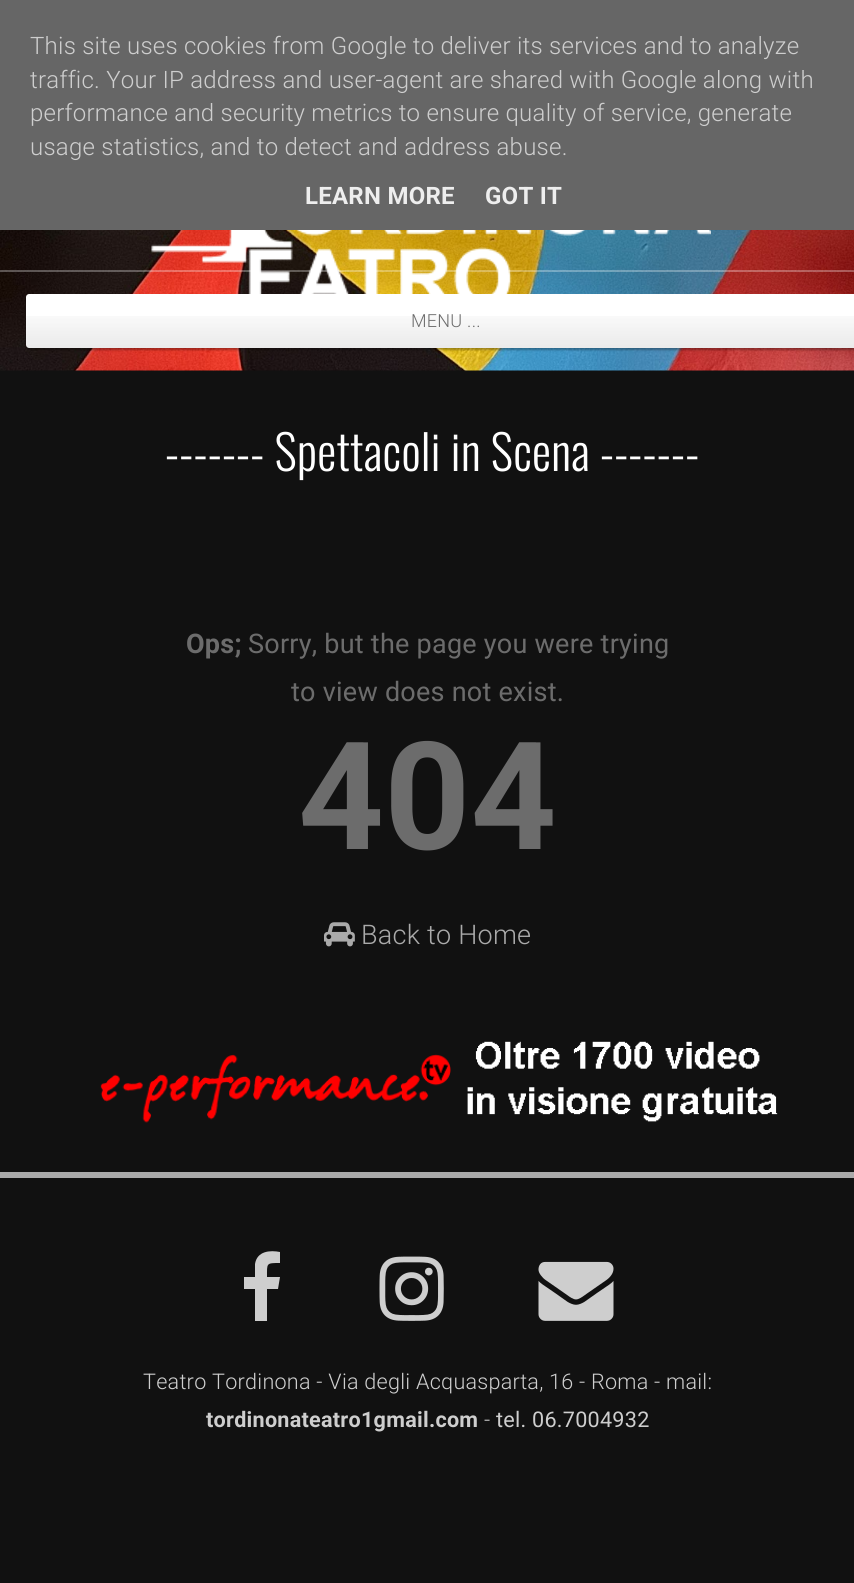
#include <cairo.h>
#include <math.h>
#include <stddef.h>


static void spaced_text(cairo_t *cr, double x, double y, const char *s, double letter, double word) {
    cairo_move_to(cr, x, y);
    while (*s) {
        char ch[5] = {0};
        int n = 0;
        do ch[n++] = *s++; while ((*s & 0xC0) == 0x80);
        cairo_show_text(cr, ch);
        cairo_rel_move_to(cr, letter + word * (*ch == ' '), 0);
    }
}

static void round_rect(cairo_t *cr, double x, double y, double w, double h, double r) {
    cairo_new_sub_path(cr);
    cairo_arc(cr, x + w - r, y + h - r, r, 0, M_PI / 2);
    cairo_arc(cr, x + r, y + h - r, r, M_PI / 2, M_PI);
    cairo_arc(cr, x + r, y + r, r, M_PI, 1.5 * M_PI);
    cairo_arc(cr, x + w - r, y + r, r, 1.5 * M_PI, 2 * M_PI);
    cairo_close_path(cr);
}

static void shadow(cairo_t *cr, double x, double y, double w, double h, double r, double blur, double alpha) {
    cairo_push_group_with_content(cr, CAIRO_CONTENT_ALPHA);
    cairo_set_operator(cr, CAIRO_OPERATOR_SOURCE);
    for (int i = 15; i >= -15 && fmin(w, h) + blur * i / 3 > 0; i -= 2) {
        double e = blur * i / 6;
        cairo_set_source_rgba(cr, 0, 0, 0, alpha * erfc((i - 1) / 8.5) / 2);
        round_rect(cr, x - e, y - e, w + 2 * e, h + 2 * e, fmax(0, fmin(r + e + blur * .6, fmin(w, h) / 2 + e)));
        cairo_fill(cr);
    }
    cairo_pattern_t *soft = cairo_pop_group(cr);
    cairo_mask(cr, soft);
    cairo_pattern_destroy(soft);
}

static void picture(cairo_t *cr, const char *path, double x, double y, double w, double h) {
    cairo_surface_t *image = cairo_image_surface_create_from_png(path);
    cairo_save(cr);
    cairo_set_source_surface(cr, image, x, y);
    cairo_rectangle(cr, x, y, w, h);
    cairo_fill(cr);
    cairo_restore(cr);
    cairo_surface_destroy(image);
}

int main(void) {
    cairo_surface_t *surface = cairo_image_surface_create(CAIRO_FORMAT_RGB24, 854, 1583);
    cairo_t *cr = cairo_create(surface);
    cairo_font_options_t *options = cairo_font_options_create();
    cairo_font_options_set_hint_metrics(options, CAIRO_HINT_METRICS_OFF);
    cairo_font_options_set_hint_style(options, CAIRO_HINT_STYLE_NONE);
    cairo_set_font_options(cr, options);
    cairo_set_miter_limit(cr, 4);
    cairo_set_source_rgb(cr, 0.067, 0.067, 0.067);
    cairo_paint(cr);
    cairo_set_source_rgb(cr, 0.4, 0.4, 0.4);
    cairo_rectangle(cr, 0, 0, 854, 230);
    cairo_fill(cr);
    cairo_select_font_face(cr, "Roboto Light", CAIRO_FONT_SLANT_NORMAL, CAIRO_FONT_WEIGHT_NORMAL);
    cairo_set_font_size(cr, 24);
    cairo_set_source_rgb(cr, 0.808, 0.808, 0.808);
    spaced_text(cr, 30, 54, "This site uses cookies from Google to deliver its services and to analyze", 0.25, 0);
    spaced_text(cr, 30, 88, "traffic. Your IP address and user-agent are shared with Google along with", 0.25, 0);
    spaced_text(cr, 30, 121, "performance and security metrics to ensure quality of service, generate", 0.25, 0);
    spaced_text(cr, 30, 155, "usage statistics, and to detect and address abuse.", 0.25, 0);
    cairo_select_font_face(cr, "Roboto", CAIRO_FONT_SLANT_NORMAL, CAIRO_FONT_WEIGHT_BOLD);
    cairo_set_source_rgb(cr, 0.933, 0.933, 0.933);
    spaced_text(cr, 305, 204, "LEARN MORE", 0.25, 0);
    spaced_text(cr, 485, 204, "GOT IT", 0.25, 0);
    picture(cr, "img1.png", 0, 230, 854, 141);
    cairo_set_source_rgba(cr, 1, 1, 1, 0.3);
    cairo_rectangle(cr, 0, 270, 854, 2);
    cairo_fill(cr);
    picture(cr, "img2.png", 151, 230, 560, 64);
    cairo_set_source_rgb(cr, 0, 0, 0);
    shadow(cr, 26, 296, 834, 54, 3, 1, 0.3);
    cairo_set_source_rgb(cr, 1, 1, 1);
    cairo_new_path(cr);
    cairo_move_to(cr, 29, 294);
    cairo_line_to(cr, 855, 294);
    cairo_line_to(cr, 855, 348);
    cairo_line_to(cr, 29, 348);
    cairo_curve_to(cr, 27.5, 348, 26, 346.5, 26, 345);
    cairo_line_to(cr, 26, 297);
    cairo_curve_to(cr, 26, 295.5, 27.5, 294, 29, 294);
    cairo_close_path(cr);
    cairo_fill(cr);
    picture(cr, "img3.png", 26, 316, 828, 32);
    cairo_select_font_face(cr, "Roboto Light", CAIRO_FONT_SLANT_NORMAL, CAIRO_FONT_WEIGHT_NORMAL);
    cairo_set_font_size(cr, 18);
    cairo_set_source_rgb(cr, 0.424, 0.424, 0.424);
    spaced_text(cr, 411, 327, "MENU ...", 0.25, 0);
    cairo_select_font_face(cr, "Oswald Light", CAIRO_FONT_SLANT_NORMAL, CAIRO_FONT_WEIGHT_NORMAL);
    cairo_set_font_size(cr, 48);
    cairo_set_source_rgb(cr, 1, 1, 1);
    spaced_text(cr, 165, 471, "------- Spettacoli in Scena -------", 0.25, 0);
    cairo_select_font_face(cr, "Roboto", CAIRO_FONT_SLANT_NORMAL, CAIRO_FONT_WEIGHT_BOLD);
    cairo_set_font_size(cr, 27);
    cairo_set_source_rgb(cr, 0.424, 0.424, 0.424);
    spaced_text(cr, 186, 653, "Ops;", 0.25, 0);
    cairo_select_font_face(cr, "Roboto", CAIRO_FONT_SLANT_NORMAL, CAIRO_FONT_WEIGHT_NORMAL);
    spaced_text(cr, 248, 653, "Sorry, but the page you were trying", 0.25, 0);
    spaced_text(cr, 291, 701, "to view does not exist.", 0.25, 0);
    cairo_select_font_face(cr, "Roboto", CAIRO_FONT_SLANT_NORMAL, CAIRO_FONT_WEIGHT_BOLD);
    cairo_set_font_size(cr, 150);
    spaced_text(cr, 298, 849, "404", 0.25, 0);
    picture(cr, "img4.png", 324, 922, 31, 25);
    cairo_select_font_face(cr, "Roboto Light", CAIRO_FONT_SLANT_NORMAL, CAIRO_FONT_WEIGHT_NORMAL);
    cairo_set_font_size(cr, 27);
    cairo_set_source_rgb(cr, 0.667, 0.667, 0.667);
    spaced_text(cr, 361, 944, "Back to Home", 0.25, 0);
    picture(cr, "img5.png", 100, 1041, 678, 82);
    cairo_rectangle(cr, 0, 1172, 854, 6);
    cairo_fill(cr);
    cairo_set_source_rgb(cr, 0.808, 0.808, 0.808);
    cairo_new_path(cr);
    cairo_move_to(cr, 280, 1252);
    cairo_line_to(cr, 280, 1263);
    cairo_curve_to(cr, 266, 1263, 267, 1263, 267, 1277);
    cairo_line_to(cr, 280, 1277);
    cairo_line_to(cr, 278, 1289);
    cairo_line_to(cr, 267, 1289);
    cairo_line_to(cr, 267, 1321);
    cairo_line_to(cr, 255, 1321);
    cairo_line_to(cr, 255, 1289);
    cairo_line_to(cr, 244, 1289);
    cairo_line_to(cr, 244, 1277);
    cairo_line_to(cr, 255, 1277);
    cairo_line_to(cr, 255, 1264);
    cairo_curve_to(cr, 257, 1251, 270, 1250, 280, 1252);
    cairo_close_path(cr);
    cairo_fill(cr);
    picture(cr, "img6.png", 379, 1256, 65, 65);
    picture(cr, "img7.png", 538, 1261, 76, 60);
    cairo_set_font_size(cr, 21.6);
    spaced_text(cr, 143, 1389, "Teatro Tordinona - Via degli Acquasparta, 16 - Roma - mail:", 0.25, 0);
    cairo_select_font_face(cr, "Roboto", CAIRO_FONT_SLANT_NORMAL, CAIRO_FONT_WEIGHT_BOLD);
    spaced_text(cr, 206, 1427, "tordinonateatro1gmail.com", 0.25, 0);
    cairo_select_font_face(cr, "Roboto Light", CAIRO_FONT_SLANT_NORMAL, CAIRO_FONT_WEIGHT_NORMAL);
    spaced_text(cr, 484, 1427, "-", 0.25, 0);
    cairo_select_font_face(cr, "Roboto", CAIRO_FONT_SLANT_NORMAL, CAIRO_FONT_WEIGHT_NORMAL);
    spaced_text(cr, 496, 1427, "tel. 06.7004932", 0.25, 0);
    cairo_surface_write_to_png(surface, "page.png");
    cairo_font_options_destroy(options);
    cairo_destroy(cr);
    cairo_surface_destroy(surface);
    return 0;
}
